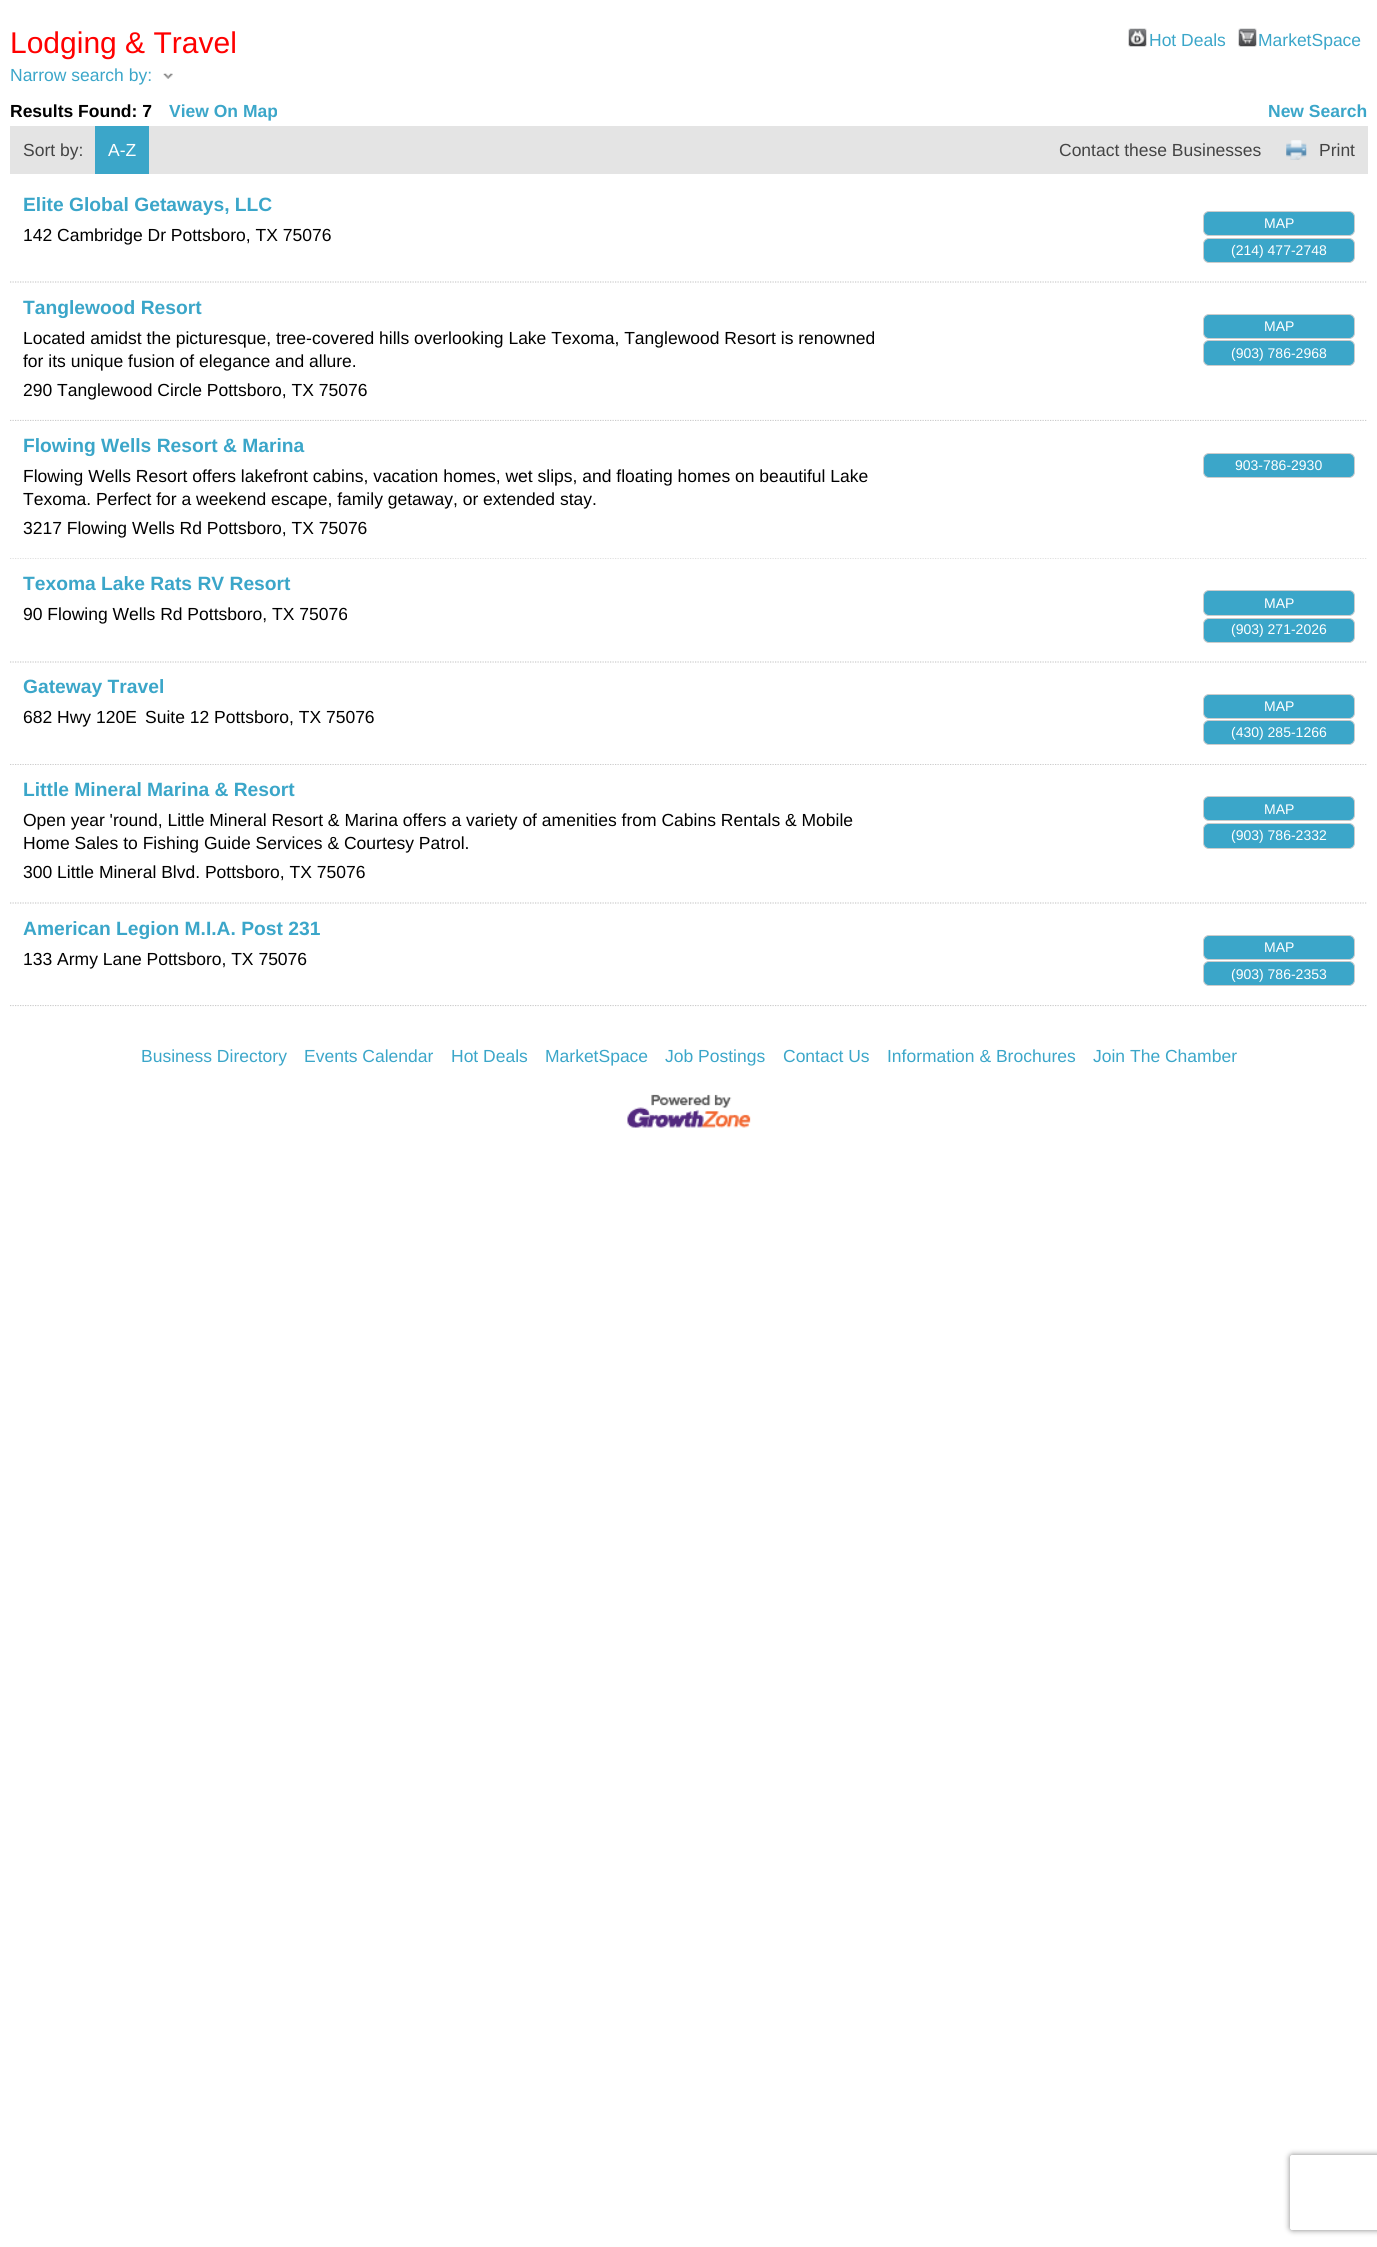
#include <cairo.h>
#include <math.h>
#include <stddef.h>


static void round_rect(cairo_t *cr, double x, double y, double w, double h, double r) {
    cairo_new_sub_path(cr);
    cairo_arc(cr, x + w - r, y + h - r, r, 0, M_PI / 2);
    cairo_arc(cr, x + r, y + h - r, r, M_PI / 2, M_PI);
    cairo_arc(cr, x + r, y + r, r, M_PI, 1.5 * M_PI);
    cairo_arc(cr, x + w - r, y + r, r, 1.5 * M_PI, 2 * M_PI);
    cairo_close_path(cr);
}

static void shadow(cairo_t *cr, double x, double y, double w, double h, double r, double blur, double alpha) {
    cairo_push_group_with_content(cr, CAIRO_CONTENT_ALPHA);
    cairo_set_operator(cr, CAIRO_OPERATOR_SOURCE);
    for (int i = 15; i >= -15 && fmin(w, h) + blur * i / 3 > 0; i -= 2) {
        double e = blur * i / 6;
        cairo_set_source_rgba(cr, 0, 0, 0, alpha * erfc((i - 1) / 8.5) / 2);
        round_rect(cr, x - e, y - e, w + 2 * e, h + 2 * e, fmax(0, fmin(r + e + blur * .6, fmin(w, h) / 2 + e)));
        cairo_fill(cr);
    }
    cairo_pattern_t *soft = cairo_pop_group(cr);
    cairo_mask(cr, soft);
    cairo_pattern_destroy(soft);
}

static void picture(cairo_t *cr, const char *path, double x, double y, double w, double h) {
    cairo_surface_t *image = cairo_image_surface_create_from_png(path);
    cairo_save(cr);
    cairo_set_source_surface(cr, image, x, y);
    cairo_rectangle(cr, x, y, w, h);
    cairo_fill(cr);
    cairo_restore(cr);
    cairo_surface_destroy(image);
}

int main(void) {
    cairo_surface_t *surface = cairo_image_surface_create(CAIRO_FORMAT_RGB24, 1377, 2247);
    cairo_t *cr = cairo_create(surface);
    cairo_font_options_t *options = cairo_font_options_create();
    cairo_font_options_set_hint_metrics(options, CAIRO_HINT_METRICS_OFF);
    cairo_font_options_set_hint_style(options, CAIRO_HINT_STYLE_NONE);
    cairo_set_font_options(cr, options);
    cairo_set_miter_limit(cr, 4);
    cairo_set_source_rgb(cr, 1, 1, 1);
    cairo_paint(cr);
    cairo_select_font_face(cr, "Liberation Sans", CAIRO_FONT_SLANT_NORMAL, CAIRO_FONT_WEIGHT_NORMAL);
    cairo_set_font_size(cr, 30);
    cairo_set_source_rgb(cr, 1, 0, 0);
    cairo_move_to(cr, 10, 53);
    cairo_show_text(cr, "Lodging & Travel");
    picture(cr, "img1.png", 1128, 28, 19, 19);
    cairo_set_font_size(cr, 17.5);
    cairo_set_source_rgb(cr, 0.231, 0.651, 0.788);
    cairo_move_to(cr, 1149, 46);
    cairo_show_text(cr, "Hot Deals");
    picture(cr, "img2.png", 1238, 28, 19, 19);
    cairo_move_to(cr, 1258, 46);
    cairo_show_text(cr, "MarketSpace");
    cairo_move_to(cr, 10, 81);
    cairo_show_text(cr, "Narrow search by:");
    picture(cr, "img3.png", 163, 73, 10, 6);
    cairo_select_font_face(cr, "Liberation Sans", CAIRO_FONT_SLANT_NORMAL, CAIRO_FONT_WEIGHT_BOLD);
    cairo_set_source_rgb(cr, 0, 0, 0);
    cairo_move_to(cr, 10, 117);
    cairo_show_text(cr, "Results Found: 7");
    cairo_set_source_rgb(cr, 0.231, 0.651, 0.788);
    cairo_move_to(cr, 169, 117);
    cairo_show_text(cr, "View On Map");
    cairo_move_to(cr, 1268, 117);
    cairo_show_text(cr, "New Search");
    cairo_set_source_rgb(cr, 0.894, 0.894, 0.894);
    cairo_rectangle(cr, 10, 126, 1358, 48);
    cairo_fill(cr);
    cairo_select_font_face(cr, "Liberation Sans", CAIRO_FONT_SLANT_NORMAL, CAIRO_FONT_WEIGHT_NORMAL);
    cairo_set_source_rgb(cr, 0.267, 0.267, 0.267);
    cairo_move_to(cr, 23, 156);
    cairo_show_text(cr, "Sort by:");
    cairo_set_source_rgb(cr, 0.231, 0.651, 0.788);
    cairo_rectangle(cr, 95, 126, 54, 48);
    cairo_fill(cr);
    cairo_set_source_rgb(cr, 1, 1, 1);
    cairo_move_to(cr, 108, 156);
    cairo_show_text(cr, "A-Z");
    cairo_set_source_rgb(cr, 0.267, 0.267, 0.267);
    cairo_move_to(cr, 1059, 156);
    cairo_show_text(cr, "Contact these Businesses");
    picture(cr, "img4.png", 1286, 140, 21, 20);
    cairo_move_to(cr, 1319, 156);
    cairo_show_text(cr, "Print");
    cairo_new_path(cr);
    cairo_move_to(cr, 10, 282);
    cairo_line_to(cr, 1367.5, 282);
    cairo_set_source_rgb(cr, 0.8, 0.8, 0.8);
    cairo_set_line_width(cr, 1.2);
    cairo_set_dash(cr, (double[]){1.25, 1.25}, 2, 0);
    cairo_stroke(cr);
    cairo_select_font_face(cr, "Liberation Sans", CAIRO_FONT_SLANT_NORMAL, CAIRO_FONT_WEIGHT_BOLD);
    cairo_set_font_size(cr, 19.25);
    cairo_set_source_rgb(cr, 0.231, 0.651, 0.788);
    cairo_move_to(cr, 23, 211);
    cairo_show_text(cr, "Elite Global Getaways, LLC");
    cairo_select_font_face(cr, "Liberation Sans", CAIRO_FONT_SLANT_NORMAL, CAIRO_FONT_WEIGHT_NORMAL);
    cairo_set_font_size(cr, 17.5);
    cairo_set_source_rgb(cr, 0, 0, 0);
    cairo_move_to(cr, 23, 241);
    cairo_show_text(cr, "142 Cambridge Dr Pottsboro, TX 75076");
    cairo_set_source_rgb(cr, 0.231, 0.651, 0.788);
    round_rect(cr, 1203.5, 211.5, 151, 24, 5.5);
    cairo_fill_preserve(cr);
    cairo_set_source_rgb(cr, 0.8, 0.8, 0.8);
    cairo_set_line_width(cr, 1);
    cairo_set_dash(cr, NULL, 0, 0);
    cairo_stroke(cr);
    cairo_set_font_size(cr, 14);
    cairo_set_source_rgb(cr, 1, 1, 1);
    cairo_move_to(cr, 1264, 228);
    cairo_show_text(cr, "MAP");
    cairo_set_source_rgb(cr, 0.231, 0.651, 0.788);
    round_rect(cr, 1203.5, 238.5, 151, 24, 5.5);
    cairo_fill_preserve(cr);
    cairo_set_source_rgb(cr, 0.8, 0.8, 0.8);
    cairo_stroke(cr);
    cairo_set_source_rgb(cr, 1, 1, 1);
    cairo_move_to(cr, 1231, 255);
    cairo_show_text(cr, "(214) 477-2748");
    cairo_new_path(cr);
    cairo_move_to(cr, 10, 420.5);
    cairo_line_to(cr, 1367.5, 420.5);
    cairo_set_source_rgb(cr, 0.8, 0.8, 0.8);
    cairo_set_line_width(cr, 1.2);
    cairo_set_dash(cr, (double[]){1.25, 1.25}, 2, 0);
    cairo_stroke(cr);
    cairo_select_font_face(cr, "Liberation Sans", CAIRO_FONT_SLANT_NORMAL, CAIRO_FONT_WEIGHT_BOLD);
    cairo_set_font_size(cr, 19.25);
    cairo_set_source_rgb(cr, 0.231, 0.651, 0.788);
    cairo_move_to(cr, 23, 314);
    cairo_show_text(cr, "Tanglewood Resort");
    cairo_select_font_face(cr, "Liberation Sans", CAIRO_FONT_SLANT_NORMAL, CAIRO_FONT_WEIGHT_NORMAL);
    cairo_set_font_size(cr, 17.5);
    cairo_set_source_rgb(cr, 0, 0, 0);
    cairo_move_to(cr, 23, 344);
    cairo_show_text(cr, "Located amidst the picturesque, tree-covered hills overlooking Lake Texoma, Tanglewood Resort is renowned");
    cairo_move_to(cr, 23, 367);
    cairo_show_text(cr, "for its unique fusion of elegance and allure.");
    cairo_move_to(cr, 23, 396);
    cairo_show_text(cr, "290 Tanglewood Circle Pottsboro, TX 75076");
    cairo_set_source_rgb(cr, 0.231, 0.651, 0.788);
    round_rect(cr, 1203.5, 314.5, 151, 24, 5.5);
    cairo_fill_preserve(cr);
    cairo_set_source_rgb(cr, 0.8, 0.8, 0.8);
    cairo_set_line_width(cr, 1);
    cairo_set_dash(cr, NULL, 0, 0);
    cairo_stroke(cr);
    cairo_set_font_size(cr, 14);
    cairo_set_source_rgb(cr, 1, 1, 1);
    cairo_move_to(cr, 1264, 331);
    cairo_show_text(cr, "MAP");
    cairo_set_source_rgb(cr, 0.231, 0.651, 0.788);
    round_rect(cr, 1203.5, 340.5, 151, 25, 5.5);
    cairo_fill_preserve(cr);
    cairo_set_source_rgb(cr, 0.8, 0.8, 0.8);
    cairo_stroke(cr);
    cairo_set_source_rgb(cr, 1, 1, 1);
    cairo_move_to(cr, 1231, 358);
    cairo_show_text(cr, "(903) 786-2968");
    cairo_new_path(cr);
    cairo_move_to(cr, 10, 558);
    cairo_line_to(cr, 1367.5, 558);
    cairo_set_source_rgb(cr, 0.8, 0.8, 0.8);
    cairo_set_line_width(cr, 1.2);
    cairo_set_dash(cr, (double[]){1.25, 1.25}, 2, 0);
    cairo_stroke(cr);
    cairo_set_source_rgb(cr, 1, 1, 1);
    cairo_rectangle(cr, 10, 421, 1357, 137);
    cairo_fill(cr);
    cairo_select_font_face(cr, "Liberation Sans", CAIRO_FONT_SLANT_NORMAL, CAIRO_FONT_WEIGHT_BOLD);
    cairo_set_font_size(cr, 19.25);
    cairo_set_source_rgb(cr, 0.231, 0.651, 0.788);
    cairo_move_to(cr, 23, 452);
    cairo_show_text(cr, "Flowing Wells Resort & Marina");
    cairo_select_font_face(cr, "Liberation Sans", CAIRO_FONT_SLANT_NORMAL, CAIRO_FONT_WEIGHT_NORMAL);
    cairo_set_font_size(cr, 17.5);
    cairo_set_source_rgb(cr, 0, 0, 0);
    cairo_move_to(cr, 23, 482);
    cairo_show_text(cr, "Flowing Wells Resort offers lakefront cabins, vacation homes, wet slips, and floating homes on beautiful Lake");
    cairo_move_to(cr, 23, 505);
    cairo_show_text(cr, "Texoma. Perfect for a weekend escape, family getaway, or extended stay.");
    cairo_move_to(cr, 23, 534);
    cairo_show_text(cr, "3217 Flowing Wells Rd Pottsboro, TX 75076");
    cairo_set_source_rgb(cr, 0.231, 0.651, 0.788);
    round_rect(cr, 1203.5, 453.5, 151, 24, 5.5);
    cairo_fill_preserve(cr);
    cairo_set_source_rgb(cr, 0.8, 0.8, 0.8);
    cairo_set_line_width(cr, 1);
    cairo_set_dash(cr, NULL, 0, 0);
    cairo_stroke(cr);
    cairo_set_font_size(cr, 14);
    cairo_set_source_rgb(cr, 1, 1, 1);
    cairo_move_to(cr, 1235, 470);
    cairo_show_text(cr, "903-786-2930");
    cairo_new_path(cr);
    cairo_move_to(cr, 10, 662);
    cairo_line_to(cr, 1367.5, 662);
    cairo_set_source_rgb(cr, 0.8, 0.8, 0.8);
    cairo_set_line_width(cr, 1.2);
    cairo_set_dash(cr, (double[]){1.25, 1.25}, 2, 0);
    cairo_stroke(cr);
    cairo_select_font_face(cr, "Liberation Sans", CAIRO_FONT_SLANT_NORMAL, CAIRO_FONT_WEIGHT_BOLD);
    cairo_set_font_size(cr, 19.25);
    cairo_set_source_rgb(cr, 0.231, 0.651, 0.788);
    cairo_move_to(cr, 23, 590);
    cairo_show_text(cr, "Texoma Lake Rats RV Resort");
    cairo_select_font_face(cr, "Liberation Sans", CAIRO_FONT_SLANT_NORMAL, CAIRO_FONT_WEIGHT_NORMAL);
    cairo_set_font_size(cr, 17.5);
    cairo_set_source_rgb(cr, 0, 0, 0);
    cairo_move_to(cr, 23, 620);
    cairo_show_text(cr, "90 Flowing Wells Rd Pottsboro, TX 75076");
    cairo_set_source_rgb(cr, 0.231, 0.651, 0.788);
    round_rect(cr, 1203.5, 590.5, 151, 25, 5.5);
    cairo_fill_preserve(cr);
    cairo_set_source_rgb(cr, 0.8, 0.8, 0.8);
    cairo_set_line_width(cr, 1);
    cairo_set_dash(cr, NULL, 0, 0);
    cairo_stroke(cr);
    cairo_set_font_size(cr, 14);
    cairo_set_source_rgb(cr, 1, 1, 1);
    cairo_move_to(cr, 1264, 608);
    cairo_show_text(cr, "MAP");
    cairo_set_source_rgb(cr, 0.231, 0.651, 0.788);
    round_rect(cr, 1203.5, 618.5, 151, 24, 5.5);
    cairo_fill_preserve(cr);
    cairo_set_source_rgb(cr, 0.8, 0.8, 0.8);
    cairo_stroke(cr);
    cairo_set_source_rgb(cr, 1, 1, 1);
    cairo_move_to(cr, 1231, 634);
    cairo_show_text(cr, "(903) 271-2026");
    cairo_new_path(cr);
    cairo_move_to(cr, 10, 764.5);
    cairo_line_to(cr, 1367.5, 764.5);
    cairo_set_source_rgb(cr, 0.8, 0.8, 0.8);
    cairo_set_line_width(cr, 1.2);
    cairo_set_dash(cr, (double[]){1.25, 1.25}, 2, 0);
    cairo_stroke(cr);
    cairo_set_source_rgb(cr, 1, 1, 1);
    cairo_rectangle(cr, 10, 763, 1356, 1);
    cairo_fill(cr);
    cairo_select_font_face(cr, "Liberation Sans", CAIRO_FONT_SLANT_NORMAL, CAIRO_FONT_WEIGHT_BOLD);
    cairo_set_font_size(cr, 19.25);
    cairo_set_source_rgb(cr, 0.231, 0.651, 0.788);
    cairo_move_to(cr, 23, 693);
    cairo_show_text(cr, "Gateway Travel");
    cairo_select_font_face(cr, "Liberation Sans", CAIRO_FONT_SLANT_NORMAL, CAIRO_FONT_WEIGHT_NORMAL);
    cairo_set_font_size(cr, 17.5);
    cairo_set_source_rgb(cr, 0, 0, 0);
    cairo_move_to(cr, 23, 723);
    cairo_show_text(cr, "682 Hwy 120E");
    cairo_move_to(cr, 145, 723);
    cairo_show_text(cr, "Suite 12 Pottsboro, TX 75076");
    cairo_set_source_rgb(cr, 0.231, 0.651, 0.788);
    round_rect(cr, 1203.5, 694.5, 151, 24, 5.5);
    cairo_fill_preserve(cr);
    cairo_set_source_rgb(cr, 0.8, 0.8, 0.8);
    cairo_set_line_width(cr, 1);
    cairo_set_dash(cr, NULL, 0, 0);
    cairo_stroke(cr);
    cairo_set_font_size(cr, 14);
    cairo_set_source_rgb(cr, 1, 1, 1);
    cairo_move_to(cr, 1264, 711);
    cairo_show_text(cr, "MAP");
    cairo_set_source_rgb(cr, 0.231, 0.651, 0.788);
    round_rect(cr, 1203.5, 720.5, 151, 24, 5.5);
    cairo_fill_preserve(cr);
    cairo_set_source_rgb(cr, 0.8, 0.8, 0.8);
    cairo_stroke(cr);
    cairo_set_source_rgb(cr, 1, 1, 1);
    cairo_move_to(cr, 1231, 737);
    cairo_show_text(cr, "(430) 285-1266");
    cairo_rectangle(cr, 10, 765, 1356, 1);
    cairo_fill(cr);
    cairo_new_path(cr);
    cairo_move_to(cr, 10, 903);
    cairo_line_to(cr, 1367.5, 903);
    cairo_set_source_rgb(cr, 0.8, 0.8, 0.8);
    cairo_set_line_width(cr, 1.2);
    cairo_set_dash(cr, (double[]){1.25, 1.25}, 2, 0);
    cairo_stroke(cr);
    cairo_select_font_face(cr, "Liberation Sans", CAIRO_FONT_SLANT_NORMAL, CAIRO_FONT_WEIGHT_BOLD);
    cairo_set_font_size(cr, 19.25);
    cairo_set_source_rgb(cr, 0.231, 0.651, 0.788);
    cairo_move_to(cr, 23, 796);
    cairo_show_text(cr, "Little Mineral Marina & Resort");
    cairo_select_font_face(cr, "Liberation Sans", CAIRO_FONT_SLANT_NORMAL, CAIRO_FONT_WEIGHT_NORMAL);
    cairo_set_font_size(cr, 17.5);
    cairo_set_source_rgb(cr, 0, 0, 0);
    cairo_move_to(cr, 23, 826);
    cairo_show_text(cr, "Open year 'round, Little Mineral Resort & Marina offers a variety of amenities from Cabins Rentals & Mobile");
    cairo_move_to(cr, 23, 849);
    cairo_show_text(cr, "Home Sales to Fishing Guide Services & Courtesy Patrol.");
    cairo_move_to(cr, 23, 878);
    cairo_show_text(cr, "300 Little Mineral Blvd. Pottsboro, TX 75076");
    cairo_set_source_rgb(cr, 0.231, 0.651, 0.788);
    round_rect(cr, 1203.5, 796.5, 151, 24, 5.5);
    cairo_fill_preserve(cr);
    cairo_set_source_rgb(cr, 0.8, 0.8, 0.8);
    cairo_set_line_width(cr, 1);
    cairo_set_dash(cr, NULL, 0, 0);
    cairo_stroke(cr);
    cairo_set_font_size(cr, 14);
    cairo_set_source_rgb(cr, 1, 1, 1);
    cairo_move_to(cr, 1264, 814);
    cairo_show_text(cr, "MAP");
    cairo_set_source_rgb(cr, 0.231, 0.651, 0.788);
    round_rect(cr, 1203.5, 823.5, 151, 25, 5.5);
    cairo_fill_preserve(cr);
    cairo_set_source_rgb(cr, 0.8, 0.8, 0.8);
    cairo_stroke(cr);
    cairo_set_source_rgb(cr, 1, 1, 1);
    cairo_move_to(cr, 1231, 840);
    cairo_show_text(cr, "(903) 786-2332");
    cairo_new_path(cr);
    cairo_move_to(cr, 10, 1005.5);
    cairo_line_to(cr, 1367.5, 1005.5);
    cairo_set_source_rgb(cr, 0.8, 0.8, 0.8);
    cairo_set_line_width(cr, 1.2);
    cairo_set_dash(cr, (double[]){1.25, 1.25}, 2, 0);
    cairo_stroke(cr);
    cairo_set_source_rgb(cr, 1, 1, 1);
    cairo_rectangle(cr, 10, 1004, 1356, 1);
    cairo_fill(cr);
    cairo_select_font_face(cr, "Liberation Sans", CAIRO_FONT_SLANT_NORMAL, CAIRO_FONT_WEIGHT_BOLD);
    cairo_set_font_size(cr, 19.25);
    cairo_set_source_rgb(cr, 0.231, 0.651, 0.788);
    cairo_move_to(cr, 23, 935);
    cairo_show_text(cr, "American Legion M.I.A. Post 231");
    cairo_select_font_face(cr, "Liberation Sans", CAIRO_FONT_SLANT_NORMAL, CAIRO_FONT_WEIGHT_NORMAL);
    cairo_set_font_size(cr, 17.5);
    cairo_set_source_rgb(cr, 0, 0, 0);
    cairo_move_to(cr, 23, 965);
    cairo_show_text(cr, "133 Army Lane Pottsboro, TX 75076");
    cairo_set_source_rgb(cr, 0.231, 0.651, 0.788);
    round_rect(cr, 1203.5, 935.5, 151, 24, 5.5);
    cairo_fill_preserve(cr);
    cairo_set_source_rgb(cr, 0.8, 0.8, 0.8);
    cairo_set_line_width(cr, 1);
    cairo_set_dash(cr, NULL, 0, 0);
    cairo_stroke(cr);
    cairo_set_font_size(cr, 14);
    cairo_set_source_rgb(cr, 1, 1, 1);
    cairo_move_to(cr, 1264, 952);
    cairo_show_text(cr, "MAP");
    cairo_set_source_rgb(cr, 0.231, 0.651, 0.788);
    round_rect(cr, 1203.5, 961.5, 151, 24, 5.5);
    cairo_fill_preserve(cr);
    cairo_set_source_rgb(cr, 0.8, 0.8, 0.8);
    cairo_stroke(cr);
    cairo_set_source_rgb(cr, 1, 1, 1);
    cairo_move_to(cr, 1231, 979);
    cairo_show_text(cr, "(903) 786-2353");
    cairo_set_font_size(cr, 17.5);
    cairo_set_source_rgb(cr, 0.231, 0.651, 0.788);
    cairo_move_to(cr, 141, 1062);
    cairo_show_text(cr, "Business Directory");
    cairo_move_to(cr, 304, 1062);
    cairo_show_text(cr, "Events Calendar");
    cairo_move_to(cr, 451, 1062);
    cairo_show_text(cr, "Hot Deals");
    cairo_move_to(cr, 545, 1062);
    cairo_show_text(cr, "MarketSpace");
    cairo_move_to(cr, 665, 1062);
    cairo_show_text(cr, "Job Postings");
    cairo_move_to(cr, 783, 1062);
    cairo_show_text(cr, "Contact Us");
    cairo_move_to(cr, 887, 1062);
    cairo_show_text(cr, "Information & Brochures");
    cairo_move_to(cr, 1093, 1062);
    cairo_show_text(cr, "Join The Chamber");
    picture(cr, "img5.png", 627, 1094, 124, 34);
    cairo_save(cr);
    cairo_set_fill_rule(cr, CAIRO_FILL_RULE_EVEN_ODD);
    cairo_new_path(cr);
    cairo_move_to(cr, 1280, 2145);
    cairo_line_to(cr, 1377, 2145);
    cairo_line_to(cr, 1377, 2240);
    cairo_line_to(cr, 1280, 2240);
    cairo_close_path(cr);
    cairo_move_to(cr, 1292.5, 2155);
    cairo_line_to(cr, 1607.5, 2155);
    cairo_curve_to(cr, 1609, 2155, 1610, 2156, 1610, 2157.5);
    cairo_line_to(cr, 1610, 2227.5);
    cairo_curve_to(cr, 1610, 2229, 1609, 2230, 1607.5, 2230);
    cairo_line_to(cr, 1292.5, 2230);
    cairo_curve_to(cr, 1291, 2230, 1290, 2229, 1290, 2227.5);
    cairo_line_to(cr, 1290, 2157.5);
    cairo_curve_to(cr, 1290, 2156, 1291, 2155, 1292.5, 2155);
    cairo_close_path(cr);
    cairo_clip(cr);
    cairo_set_source_rgb(cr, 0.502, 0.502, 0.502);
    shadow(cr, 1290, 2155, 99, 75, 2.5, 3, 1);
    cairo_restore(cr);
    cairo_surface_write_to_png(surface, "page.png");
    cairo_font_options_destroy(options);
    cairo_destroy(cr);
    cairo_surface_destroy(surface);
    return 0;
}
